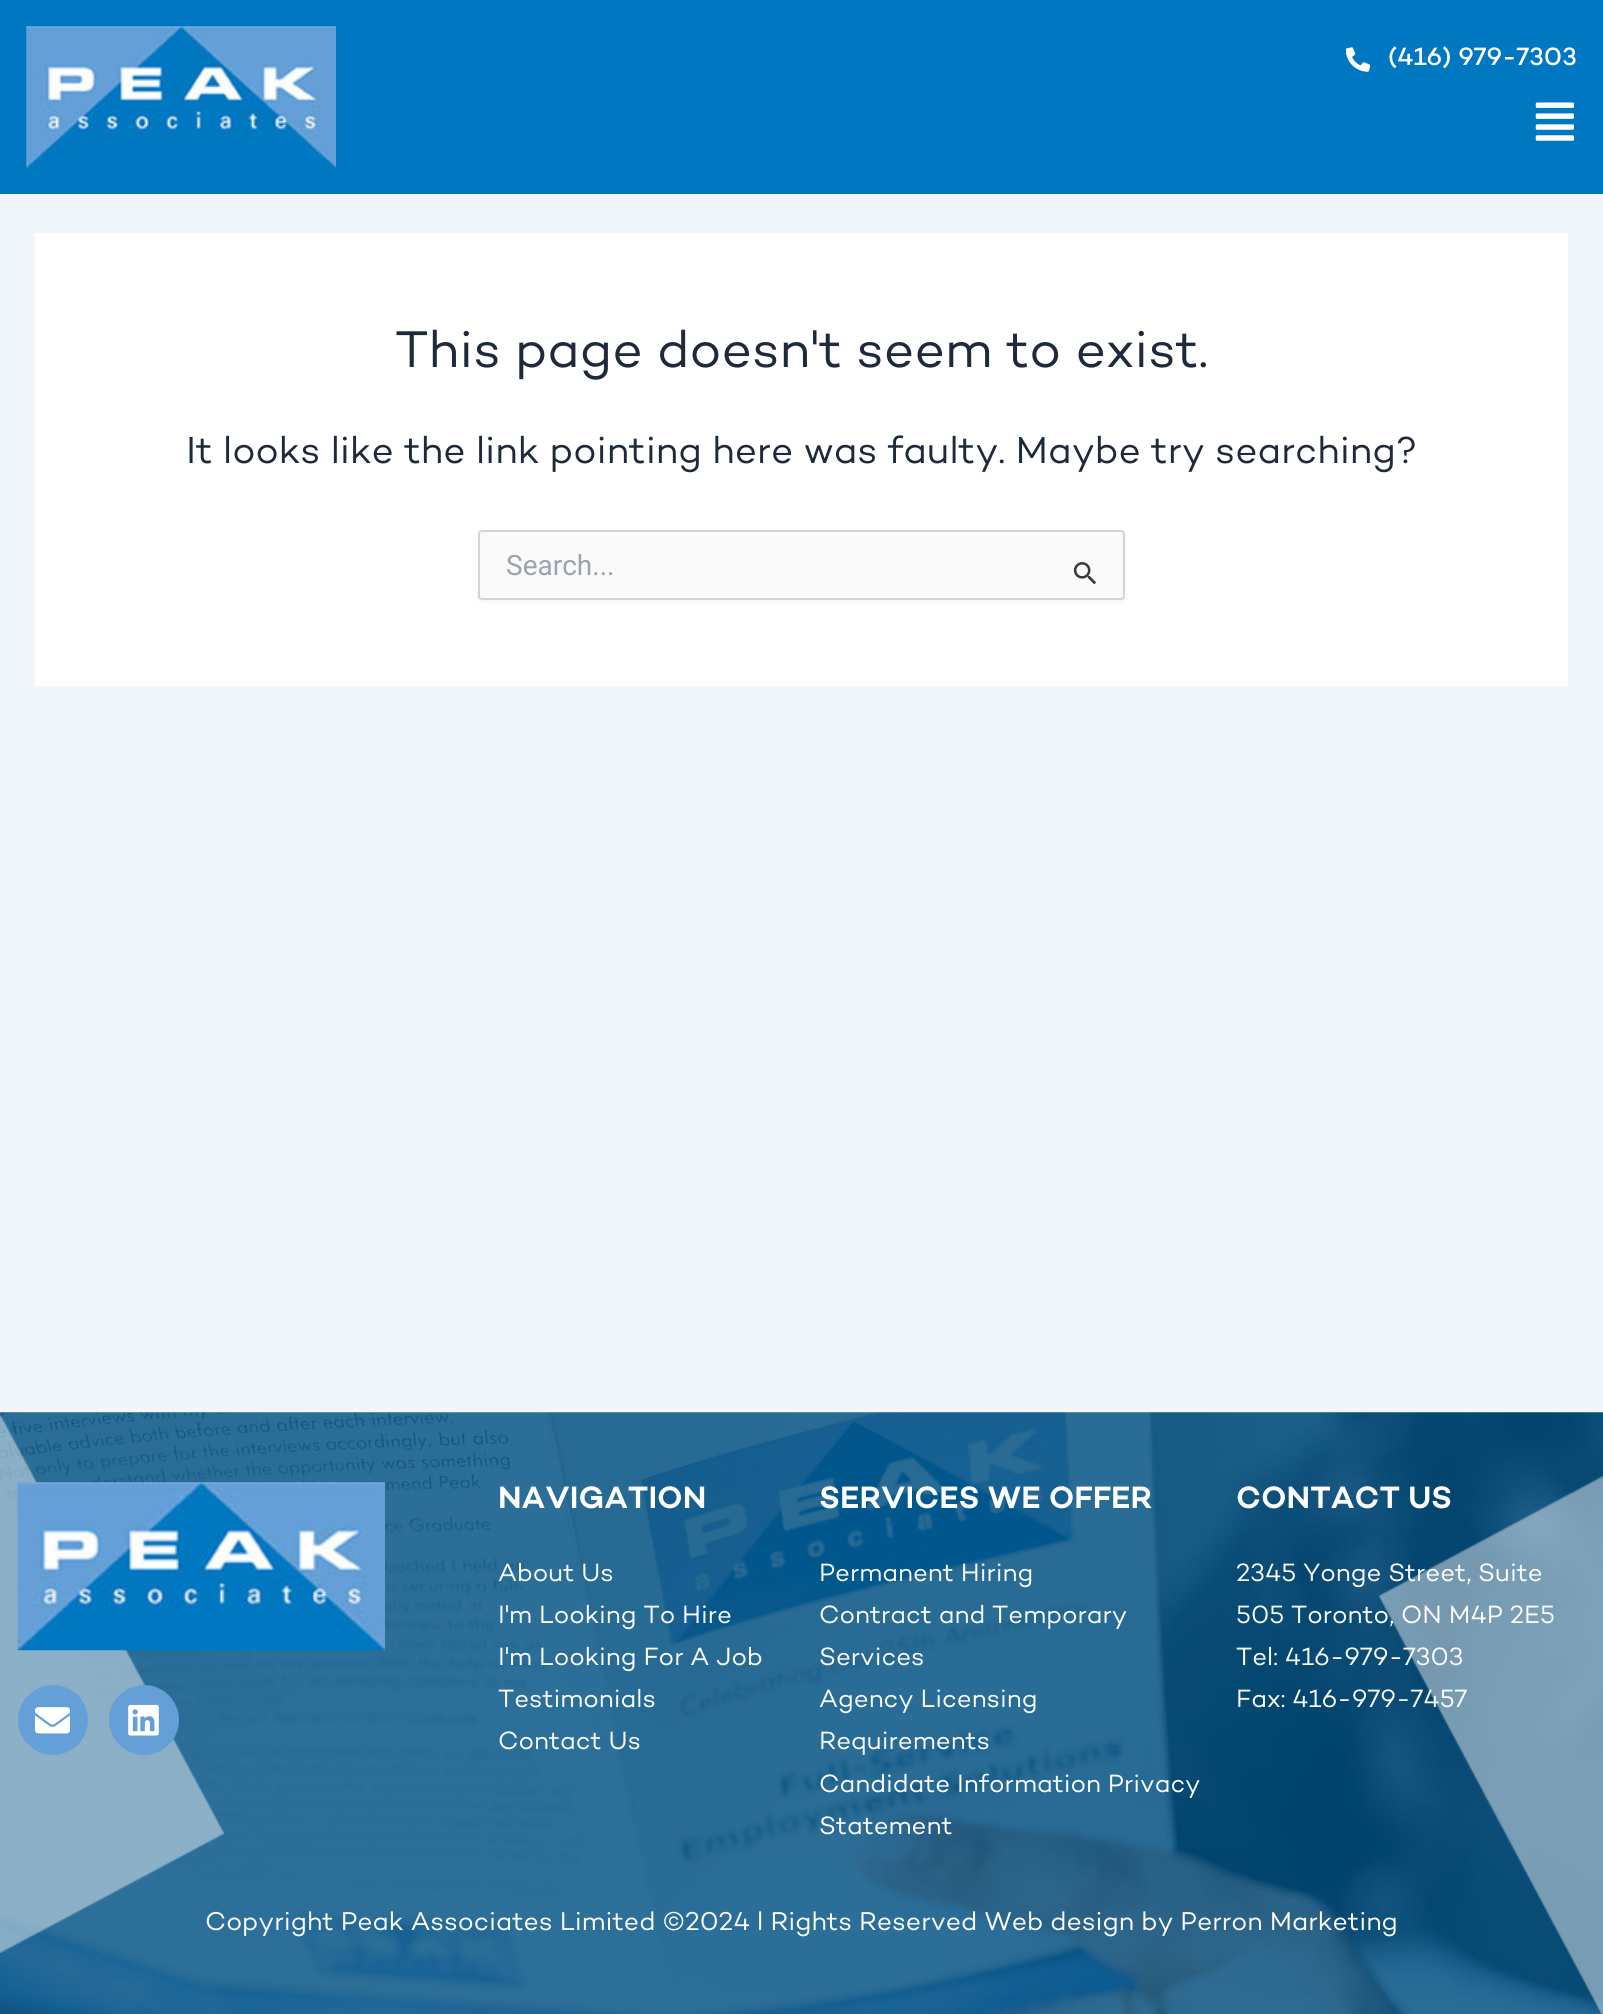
#include <cairo.h>
#include <math.h>
#include <stddef.h>


static void round_rect(cairo_t *cr, double x, double y, double w, double h, double r) {
    cairo_new_sub_path(cr);
    cairo_arc(cr, x + w - r, y + h - r, r, 0, M_PI / 2);
    cairo_arc(cr, x + r, y + h - r, r, M_PI / 2, M_PI);
    cairo_arc(cr, x + r, y + r, r, M_PI, 1.5 * M_PI);
    cairo_arc(cr, x + w - r, y + r, r, 1.5 * M_PI, 2 * M_PI);
    cairo_close_path(cr);
}

static void shadow(cairo_t *cr, double x, double y, double w, double h, double r, double blur, double alpha) {
    cairo_push_group_with_content(cr, CAIRO_CONTENT_ALPHA);
    cairo_set_operator(cr, CAIRO_OPERATOR_SOURCE);
    for (int i = 15; i >= -15 && fmin(w, h) + blur * i / 3 > 0; i -= 2) {
        double e = blur * i / 6;
        cairo_set_source_rgba(cr, 0, 0, 0, alpha * erfc((i - 1) / 8.5) / 2);
        round_rect(cr, x - e, y - e, w + 2 * e, h + 2 * e, fmax(0, fmin(r + e + blur * .6, fmin(w, h) / 2 + e)));
        cairo_fill(cr);
    }
    cairo_pattern_t *soft = cairo_pop_group(cr);
    cairo_mask(cr, soft);
    cairo_pattern_destroy(soft);
}

static void picture(cairo_t *cr, const char *path, double x, double y, double w, double h) {
    cairo_surface_t *image = cairo_image_surface_create_from_png(path);
    cairo_save(cr);
    cairo_set_source_surface(cr, image, x, y);
    cairo_rectangle(cr, x, y, w, h);
    cairo_fill(cr);
    cairo_restore(cr);
    cairo_surface_destroy(image);
}

int main(void) {
    cairo_surface_t *surface = cairo_image_surface_create(CAIRO_FORMAT_RGB24, 1603, 2014);
    cairo_t *cr = cairo_create(surface);
    cairo_font_options_t *options = cairo_font_options_create();
    cairo_font_options_set_hint_metrics(options, CAIRO_HINT_METRICS_OFF);
    cairo_font_options_set_hint_style(options, CAIRO_HINT_STYLE_NONE);
    cairo_set_font_options(cr, options);
    cairo_set_miter_limit(cr, 4);
    cairo_set_source_rgb(cr, 0.941, 0.961, 0.98);
    cairo_paint(cr);
    cairo_set_source_rgb(cr, 0, 0.471, 0.757);
    cairo_rectangle(cr, 0, 0, 1603, 194);
    cairo_fill(cr);
    picture(cr, "img1.png", 26, 26, 310, 142);
    picture(cr, "img2.png", 1346, 47, 24, 25);
    cairo_select_font_face(cr, "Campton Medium", CAIRO_FONT_SLANT_NORMAL, CAIRO_FONT_WEIGHT_NORMAL);
    cairo_set_font_size(cr, 25.5);
    cairo_set_source_rgb(cr, 1, 1, 1);
    cairo_move_to(cr, 1388, 65);
    cairo_show_text(cr, "(416) 979-7303");
    picture(cr, "img3.png", 1535, 102, 39, 39);
    cairo_rectangle(cr, 35, 233, 1533, 453);
    cairo_fill(cr);
    cairo_select_font_face(cr, "Campton", CAIRO_FONT_SLANT_NORMAL, CAIRO_FONT_WEIGHT_NORMAL);
    cairo_set_font_size(cr, 52.5);
    cairo_set_source_rgb(cr, 0.118, 0.161, 0.231);
    cairo_move_to(cr, 395, 367);
    cairo_show_text(cr, "This page doesn't seem to exist.");
    cairo_set_font_size(cr, 38.3);
    cairo_move_to(cr, 186, 463);
    cairo_show_text(cr, "It looks like the link pointing here was faulty. Maybe try searching?");
    cairo_set_source_rgb(cr, 0, 0, 0);
    shadow(cr, 478, 532, 647, 70, 4, 2, 0.05);
    cairo_set_source_rgb(cr, 0.98, 0.98, 0.98);
    round_rect(cr, 479, 531, 645, 68, 3);
    cairo_fill_preserve(cr);
    cairo_set_source_rgb(cr, 0.82, 0.835, 0.859);
    cairo_stroke(cr);
    cairo_select_font_face(cr, "Roboto", CAIRO_FONT_SLANT_NORMAL, CAIRO_FONT_WEIGHT_NORMAL);
    cairo_set_font_size(cr, 28);
    cairo_set_source_rgb(cr, 0.612, 0.639, 0.686);
    cairo_move_to(cr, 506, 575);
    cairo_show_text(cr, "Search...");
    picture(cr, "img4.png", 1073, 562, 23, 23);
    picture(cr, "img5.png", 0, 1412, 1603, 602);
    cairo_select_font_face(cr, "Campton", CAIRO_FONT_SLANT_NORMAL, CAIRO_FONT_WEIGHT_NORMAL);
    cairo_set_font_size(cr, 26.25);
    cairo_set_source_rgb(cr, 1, 1, 1);
    cairo_move_to(cr, 205, 1930);
    cairo_show_text(cr, "Copyright Peak Associates Limited ©2024 l Rights Reserved Web design by Perron Marketing");
    picture(cr, "img6.png", 0, 1415, 224, 538);
    picture(cr, "img7.png", 1379, 1476, 224, 538);
    picture(cr, "img8.png", 17, 1482, 368, 169);
    cairo_set_source_rgb(cr, 0.392, 0.627, 0.843);
    cairo_arc(cr, 53, 1720, 35, 0, 2 * M_PI);
    cairo_fill(cr);
    picture(cr, "img9.png", 35, 1707, 35, 27);
    cairo_arc(cr, 144, 1720, 35, 0, 2 * M_PI);
    cairo_fill(cr);
    picture(cr, "img10.png", 128, 1704, 31, 32);
    cairo_select_font_face(cr, "Campton SemiBold", CAIRO_FONT_SLANT_NORMAL, CAIRO_FONT_WEIGHT_NORMAL);
    cairo_set_font_size(cr, 31.5);
    cairo_set_source_rgb(cr, 1, 1, 1);
    cairo_move_to(cr, 498, 1508);
    cairo_show_text(cr, "NAVIGATION");
    cairo_select_font_face(cr, "Campton", CAIRO_FONT_SLANT_NORMAL, CAIRO_FONT_WEIGHT_NORMAL);
    cairo_set_font_size(cr, 25.5);
    cairo_move_to(cr, 498, 1581);
    cairo_show_text(cr, "About Us");
    cairo_move_to(cr, 498, 1623);
    cairo_show_text(cr, "I'm Looking To Hire");
    cairo_move_to(cr, 498, 1665);
    cairo_show_text(cr, "I'm Looking For A Job");
    cairo_move_to(cr, 498, 1707);
    cairo_show_text(cr, "Testimonials");
    cairo_move_to(cr, 498, 1749);
    cairo_show_text(cr, "Contact Us");
    cairo_select_font_face(cr, "Campton SemiBold", CAIRO_FONT_SLANT_NORMAL, CAIRO_FONT_WEIGHT_NORMAL);
    cairo_set_font_size(cr, 31.5);
    cairo_move_to(cr, 819, 1508);
    cairo_show_text(cr, "SERVICES WE OFFER");
    cairo_select_font_face(cr, "Campton", CAIRO_FONT_SLANT_NORMAL, CAIRO_FONT_WEIGHT_NORMAL);
    cairo_set_font_size(cr, 25.5);
    cairo_move_to(cr, 819, 1581);
    cairo_show_text(cr, "Permanent Hiring");
    cairo_move_to(cr, 819, 1623);
    cairo_show_text(cr, "Contract and Temporary");
    cairo_move_to(cr, 819, 1665);
    cairo_show_text(cr, "Services");
    cairo_move_to(cr, 819, 1707);
    cairo_show_text(cr, "Agency Licensing");
    cairo_move_to(cr, 819, 1749);
    cairo_show_text(cr, "Requirements");
    cairo_move_to(cr, 819, 1792);
    cairo_show_text(cr, "Candidate Information Privacy");
    cairo_move_to(cr, 819, 1834);
    cairo_show_text(cr, "Statement");
    cairo_select_font_face(cr, "Campton SemiBold", CAIRO_FONT_SLANT_NORMAL, CAIRO_FONT_WEIGHT_NORMAL);
    cairo_set_font_size(cr, 31.5);
    cairo_move_to(cr, 1236, 1508);
    cairo_show_text(cr, "CONTACT US");
    cairo_select_font_face(cr, "Campton", CAIRO_FONT_SLANT_NORMAL, CAIRO_FONT_WEIGHT_NORMAL);
    cairo_set_font_size(cr, 25.5);
    cairo_move_to(cr, 1236, 1581);
    cairo_show_text(cr, "2345 Yonge Street, Suite");
    cairo_move_to(cr, 1236, 1623);
    cairo_show_text(cr, "505 Toronto, ON M4P 2E5");
    cairo_move_to(cr, 1236, 1665);
    cairo_show_text(cr, "Tel: 416-979-7303");
    cairo_move_to(cr, 1236, 1707);
    cairo_show_text(cr, "Fax: 416-979-7457");
    cairo_surface_write_to_png(surface, "page.png");
    cairo_font_options_destroy(options);
    cairo_destroy(cr);
    cairo_surface_destroy(surface);
    return 0;
}
